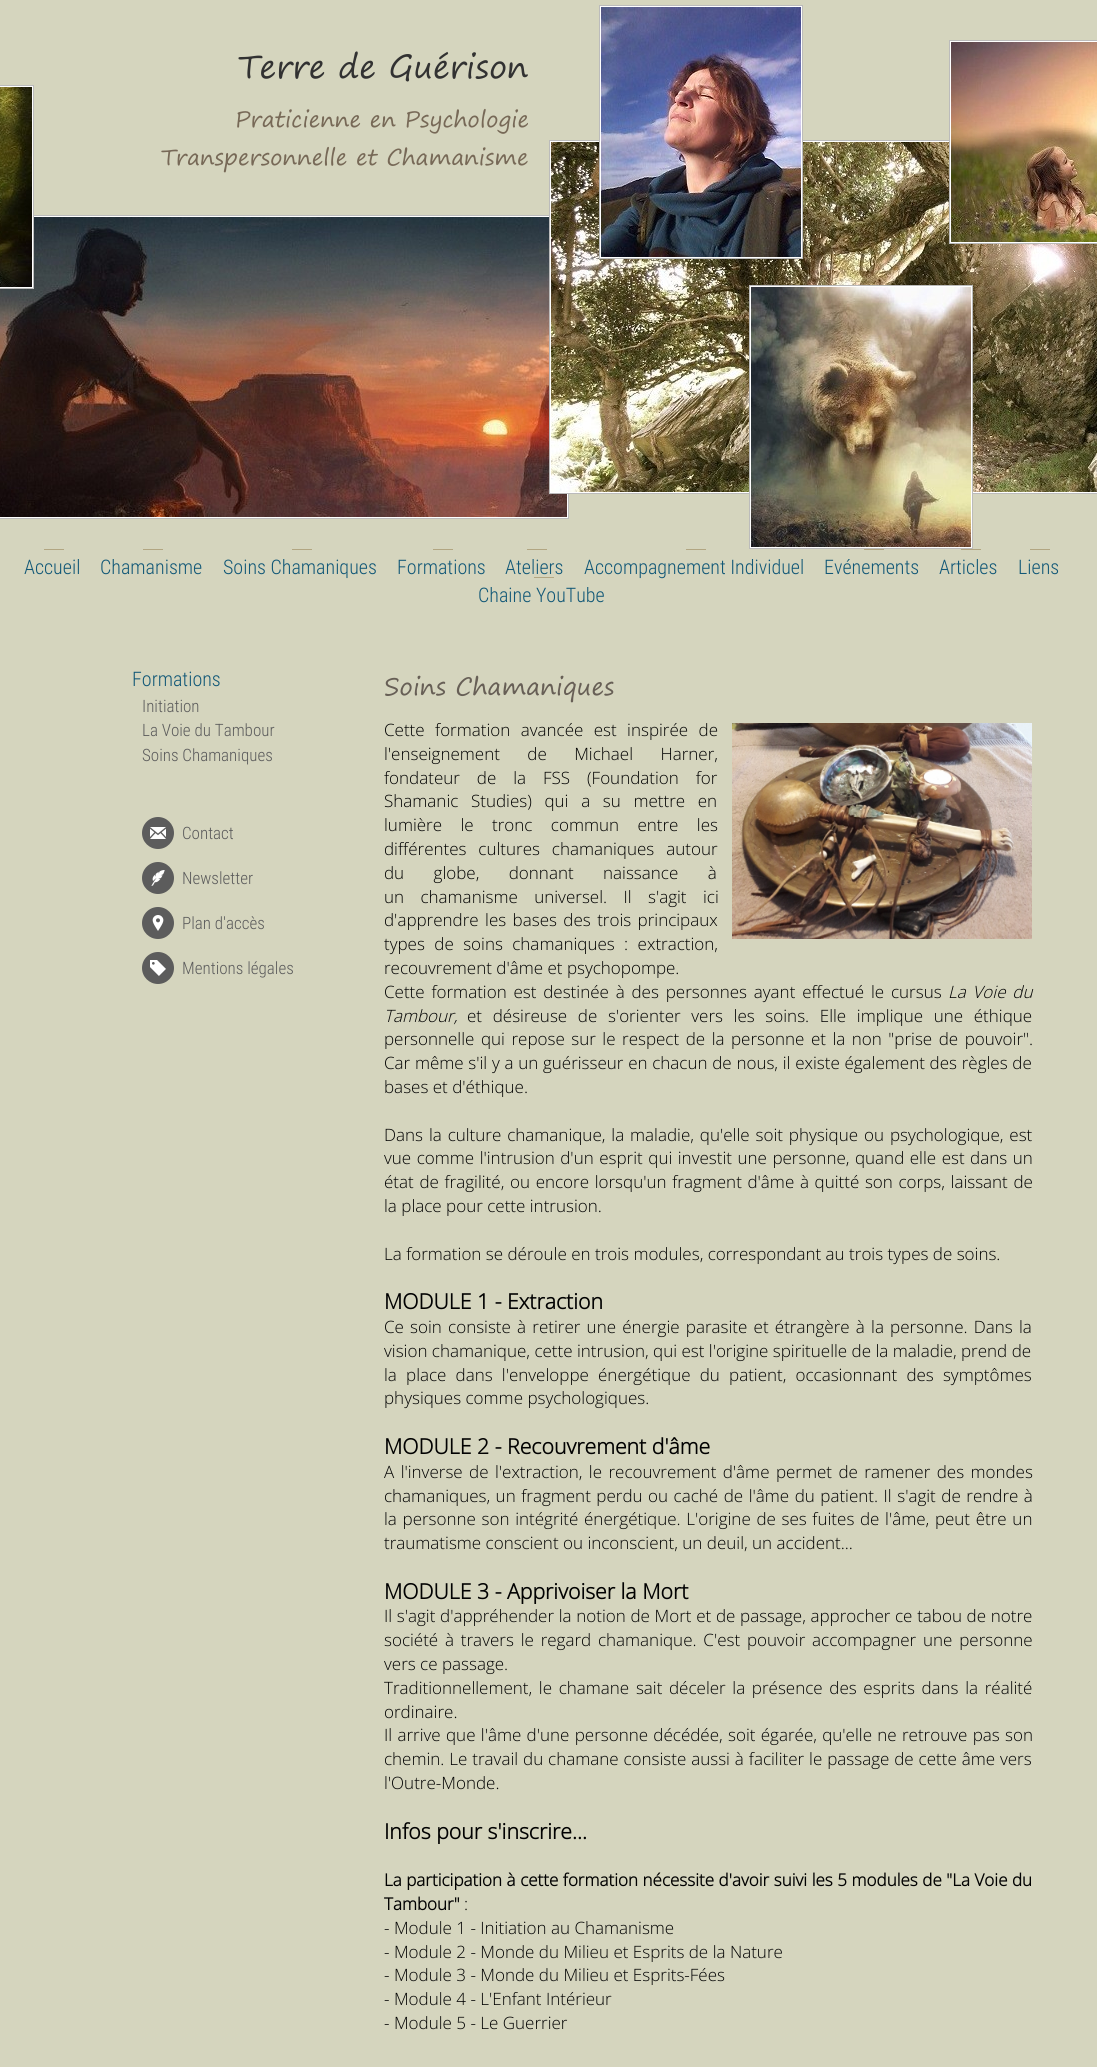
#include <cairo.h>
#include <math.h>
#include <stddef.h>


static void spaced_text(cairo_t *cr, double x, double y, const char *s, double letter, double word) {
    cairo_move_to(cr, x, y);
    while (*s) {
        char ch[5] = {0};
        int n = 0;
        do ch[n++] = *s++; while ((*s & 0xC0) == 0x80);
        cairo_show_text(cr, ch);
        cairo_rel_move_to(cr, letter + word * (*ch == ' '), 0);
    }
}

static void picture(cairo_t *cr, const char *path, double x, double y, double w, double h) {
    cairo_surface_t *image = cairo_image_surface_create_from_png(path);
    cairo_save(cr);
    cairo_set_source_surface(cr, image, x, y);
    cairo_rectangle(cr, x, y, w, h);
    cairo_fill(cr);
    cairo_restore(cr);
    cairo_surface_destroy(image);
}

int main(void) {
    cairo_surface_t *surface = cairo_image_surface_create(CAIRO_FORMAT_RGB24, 1097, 2067);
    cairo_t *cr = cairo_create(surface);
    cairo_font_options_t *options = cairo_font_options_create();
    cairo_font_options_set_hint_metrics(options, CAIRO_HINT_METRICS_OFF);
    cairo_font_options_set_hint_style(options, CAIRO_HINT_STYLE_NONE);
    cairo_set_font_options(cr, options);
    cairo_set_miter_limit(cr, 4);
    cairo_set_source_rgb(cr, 0.835, 0.835, 0.745);
    cairo_paint(cr);
    cairo_set_source_rgb(cr, 1, 1, 1);
    cairo_rectangle(cr, -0.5, 215.5, 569, 303);
    cairo_fill_preserve(cr);
    cairo_set_source_rgb(cr, 0.733, 0.733, 0.733);
    cairo_set_line_width(cr, 1);
    cairo_stroke(cr);
    picture(cr, "img4.png", 0, 217, 567, 300);
    cairo_set_source_rgb(cr, 1, 1, 1);
    cairo_rectangle(cr, -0.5, 85.5, 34, 203);
    cairo_fill_preserve(cr);
    cairo_set_source_rgb(cr, 0.733, 0.733, 0.733);
    cairo_stroke(cr);
    picture(cr, "img1.png", 0, 87, 32, 200);
    cairo_set_source_rgb(cr, 1, 1, 1);
    cairo_rectangle(cr, 549.5, 140.5, 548, 353);
    cairo_fill_preserve(cr);
    cairo_set_source_rgb(cr, 0.733, 0.733, 0.733);
    cairo_stroke(cr);
    picture(cr, "img5.png", 551, 142, 546, 350);
    cairo_set_source_rgb(cr, 1, 1, 1);
    cairo_rectangle(cr, 599.5, 5.5, 203, 253);
    cairo_fill_preserve(cr);
    cairo_set_source_rgb(cr, 0.733, 0.733, 0.733);
    cairo_stroke(cr);
    picture(cr, "img2.png", 601, 7, 200, 250);
    cairo_set_source_rgb(cr, 1, 1, 1);
    cairo_rectangle(cr, 949.5, 40.5, 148, 203);
    cairo_fill_preserve(cr);
    cairo_set_source_rgb(cr, 0.733, 0.733, 0.733);
    cairo_stroke(cr);
    picture(cr, "img3.png", 951, 42, 146, 200);
    cairo_set_source_rgb(cr, 1, 1, 1);
    cairo_rectangle(cr, 749.5, 285.5, 223, 263);
    cairo_fill_preserve(cr);
    cairo_set_source_rgb(cr, 0.733, 0.733, 0.733);
    cairo_stroke(cr);
    picture(cr, "img6.png", 751, 287, 220, 260);
    cairo_select_font_face(cr, "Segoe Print", CAIRO_FONT_SLANT_NORMAL, CAIRO_FONT_WEIGHT_NORMAL);
    cairo_set_font_size(cr, 32);
    cairo_set_source_rgb(cr, 0.196, 0.196, 0.196);
    cairo_move_to(cr, 238, 78);
    cairo_show_text(cr, "Terre de Guérison");
    cairo_set_font_size(cr, 22);
    cairo_set_source_rgb(cr, 0.467, 0.412, 0.341);
    cairo_move_to(cr, 235, 127);
    cairo_show_text(cr, "Praticienne en Psychologie");
    cairo_move_to(cr, 161, 165);
    cairo_show_text(cr, "Transpersonnelle et Chamanisme");
    cairo_set_source_rgb(cr, 0.698, 0.651, 0.51);
    cairo_rectangle(cr, 44, 549, 20, 1);
    cairo_fill(cr);
    cairo_select_font_face(cr, "Roboto Condensed Light", CAIRO_FONT_SLANT_NORMAL, CAIRO_FONT_WEIGHT_NORMAL);
    cairo_set_font_size(cr, 20);
    cairo_set_source_rgb(cr, 0.071, 0.345, 0.467);
    cairo_move_to(cr, 24, 574);
    cairo_show_text(cr, "Accueil");
    cairo_set_source_rgb(cr, 0.698, 0.651, 0.51);
    cairo_rectangle(cr, 143, 549, 20, 1);
    cairo_fill(cr);
    cairo_set_source_rgb(cr, 0.071, 0.345, 0.467);
    cairo_move_to(cr, 100, 574);
    cairo_show_text(cr, "Chamanisme");
    cairo_set_source_rgb(cr, 0.698, 0.651, 0.51);
    cairo_rectangle(cr, 292, 549, 20, 1);
    cairo_fill(cr);
    cairo_set_source_rgb(cr, 0.071, 0.345, 0.467);
    cairo_move_to(cr, 223, 574);
    cairo_show_text(cr, "Soins Chamaniques");
    cairo_set_source_rgb(cr, 0.698, 0.651, 0.51);
    cairo_rectangle(cr, 433, 549, 20, 1);
    cairo_fill(cr);
    cairo_set_source_rgb(cr, 0.071, 0.345, 0.467);
    cairo_move_to(cr, 397, 574);
    cairo_show_text(cr, "Formations");
    cairo_set_source_rgb(cr, 0.698, 0.651, 0.51);
    cairo_rectangle(cr, 527, 549, 20, 1);
    cairo_fill(cr);
    cairo_set_source_rgb(cr, 0.071, 0.345, 0.467);
    cairo_move_to(cr, 505, 574);
    cairo_show_text(cr, "Ateliers");
    cairo_set_source_rgb(cr, 0.698, 0.651, 0.51);
    cairo_rectangle(cr, 686, 549, 20, 1);
    cairo_fill(cr);
    cairo_set_source_rgb(cr, 0.071, 0.345, 0.467);
    cairo_move_to(cr, 584, 574);
    cairo_show_text(cr, "Accompagnement Individuel");
    cairo_set_source_rgb(cr, 0.698, 0.651, 0.51);
    cairo_rectangle(cr, 864, 549, 20, 1);
    cairo_fill(cr);
    cairo_set_source_rgb(cr, 0.071, 0.345, 0.467);
    cairo_move_to(cr, 824, 574);
    cairo_show_text(cr, "Evénements");
    cairo_set_source_rgb(cr, 0.698, 0.651, 0.51);
    cairo_rectangle(cr, 961, 549, 20, 1);
    cairo_fill(cr);
    cairo_set_source_rgb(cr, 0.071, 0.345, 0.467);
    cairo_move_to(cr, 939, 574);
    cairo_show_text(cr, "Articles");
    cairo_set_source_rgb(cr, 0.698, 0.651, 0.51);
    cairo_rectangle(cr, 1030, 549, 20, 1);
    cairo_fill(cr);
    cairo_set_source_rgb(cr, 0.071, 0.345, 0.467);
    cairo_move_to(cr, 1018, 574);
    cairo_show_text(cr, "Liens");
    cairo_set_source_rgb(cr, 0.698, 0.651, 0.51);
    cairo_rectangle(cr, 534, 577, 20, 1);
    cairo_fill(cr);
    cairo_set_source_rgb(cr, 0.071, 0.345, 0.467);
    cairo_move_to(cr, 478, 602);
    cairo_show_text(cr, "Chaine YouTube");
    cairo_move_to(cr, 132, 686);
    cairo_show_text(cr, "Formations");
    cairo_set_font_size(cr, 17);
    cairo_set_source_rgb(cr, 0.361, 0.361, 0.361);
    cairo_move_to(cr, 142, 712);
    cairo_show_text(cr, "Initiation");
    cairo_move_to(cr, 142, 736);
    cairo_show_text(cr, "La Voie du Tambour");
    cairo_move_to(cr, 142, 761);
    cairo_show_text(cr, "Soins Chamaniques");
    cairo_new_path(cr);
    cairo_arc(cr, 158, 833, 16, 0, 2 * M_PI);
    cairo_fill(cr);
    picture(cr, "img7.png", 150, 827, 16, 12);
    cairo_move_to(cr, 182, 839);
    cairo_show_text(cr, "Contact");
    cairo_new_path(cr);
    cairo_arc(cr, 158, 878, 16, 0, 2 * M_PI);
    cairo_fill(cr);
    picture(cr, "img8.png", 151, 870, 14, 16);
    cairo_move_to(cr, 182, 884);
    cairo_show_text(cr, "Newsletter");
    cairo_new_path(cr);
    cairo_arc(cr, 158, 923, 16, 0, 2 * M_PI);
    cairo_fill(cr);
    picture(cr, "img9.png", 152, 915, 12, 16);
    cairo_move_to(cr, 182, 929);
    cairo_show_text(cr, "Plan d'accès");
    cairo_new_path(cr);
    cairo_arc(cr, 158, 968, 16, 0, 2 * M_PI);
    cairo_fill(cr);
    picture(cr, "img10.png", 150, 960, 16, 16);
    cairo_move_to(cr, 182, 974);
    cairo_show_text(cr, "Mentions légales");
    cairo_select_font_face(cr, "Segoe Print", CAIRO_FONT_SLANT_NORMAL, CAIRO_FONT_WEIGHT_NORMAL);
    cairo_set_font_size(cr, 24);
    cairo_set_source_rgb(cr, 0.404, 0.373, 0.337);
    cairo_move_to(cr, 384, 695);
    cairo_show_text(cr, "Soins Chamaniques");
    cairo_select_font_face(cr, "Open Sans Light", CAIRO_FONT_SLANT_NORMAL, CAIRO_FONT_WEIGHT_NORMAL);
    cairo_set_font_size(cr, 17);
    cairo_set_source_rgb(cr, 0.004, 0.004, 0.004);
    spaced_text(cr, 384, 736, "Cette formation avancée est inspirée de", 0, 6);
    spaced_text(cr, 384, 760, "l'enseignement de Michael Harner,", 0, 23);
    spaced_text(cr, 384, 784, "fondateur de la FSS (Foundation for", 0, 12.5);
    spaced_text(cr, 384, 807, "Shamanic Studies) qui a su mettre en", 0, 8.25);
    spaced_text(cr, 384, 831, "lumière le tronc commun entre les", 0, 14);
    spaced_text(cr, 384, 855, "différentes cultures chamaniques autour", 0, 7.5);
    spaced_text(cr, 384, 879, "du globe, donnant naissance à", 0, 25);
    spaced_text(cr, 384, 903, "un chamanisme universel. Il s'agit ici", 0, 12);
    spaced_text(cr, 384, 926, "d'apprendre les bases des trois principaux", 0, 2);
    spaced_text(cr, 384, 950, "types de soins chamaniques : extraction,", 0, 5);
    cairo_move_to(cr, 384, 974);
    cairo_show_text(cr, "recouvrement d'âme et psychopompe.");
    spaced_text(cr, 384, 998, "Cette formation est destinée à des personnes ayant effectué le cursus", 0, 2.4);
    cairo_select_font_face(cr, "Open Sans Light", CAIRO_FONT_SLANT_ITALIC, CAIRO_FONT_WEIGHT_NORMAL);
    spaced_text(cr, 948, 998, "La Voie du", 0, 2.4);
    cairo_move_to(cr, 384, 1022);
    cairo_show_text(cr, "Tambour,");
    cairo_select_font_face(cr, "Open Sans Light", CAIRO_FONT_SLANT_NORMAL, CAIRO_FONT_WEIGHT_NORMAL);
    spaced_text(cr, 467, 1022, "et désireuse de s'orienter vers les soins. Elle implique une éthique", 0, 6.25);
    spaced_text(cr, 384, 1045, "personnelle qui repose sur le respect de la personne et la non \"prise de pouvoir\".", 0, 2.1);
    spaced_text(cr, 384, 1069, "Car même s'il y a un guérisseur en chacun de nous, il existe également des règles de", 0, 0.3);
    cairo_move_to(cr, 384, 1093);
    cairo_show_text(cr, "bases et d'éthique.");
    spaced_text(cr, 384, 1141, "Dans la culture chamanique, la maladie, qu'elle soit physique ou psychologique, est", 0, 1.5);
    spaced_text(cr, 384, 1164, "vue comme l'intrusion d'un esprit qui investit une personne, quand elle est dans un", 0, 1.1);
    spaced_text(cr, 384, 1188, "état de fragilité, ou encore lorsqu'un fragment d'âme à quitté son corps, laissant de", 0, 1.25);
    cairo_move_to(cr, 384, 1212);
    cairo_show_text(cr, "la place pour cette intrusion.");
    cairo_move_to(cr, 384, 1260);
    cairo_show_text(cr, "La formation se déroule en trois modules, correspondant au trois types de soins.");
    cairo_select_font_face(cr, "Open Sans", CAIRO_FONT_SLANT_NORMAL, CAIRO_FONT_WEIGHT_BOLD);
    cairo_set_font_size(cr, 21.25);
    cairo_move_to(cr, 384, 1309);
    cairo_show_text(cr, "MODULE 1 - Extraction");
    cairo_select_font_face(cr, "Open Sans Light", CAIRO_FONT_SLANT_NORMAL, CAIRO_FONT_WEIGHT_NORMAL);
    cairo_set_font_size(cr, 17);
    spaced_text(cr, 384, 1333, "Ce soin consiste à retirer une énergie parasite et étrangère à la personne. Dans la", 0, 1.8);
    cairo_move_to(cr, 384, 1357);
    cairo_show_text(cr, "vision chamanique, cette intrusion, qui est l'origine spirituelle de la maladie, prend de");
    spaced_text(cr, 384, 1381, "la place dans l'enveloppe énergétique du patient, occasionnant des symptômes", 0, 4.75);
    cairo_move_to(cr, 384, 1404);
    cairo_show_text(cr, "physiques comme psychologiques.");
    cairo_select_font_face(cr, "Open Sans", CAIRO_FONT_SLANT_NORMAL, CAIRO_FONT_WEIGHT_BOLD);
    cairo_set_font_size(cr, 21.25);
    cairo_move_to(cr, 384, 1454);
    cairo_show_text(cr, "MODULE 2 - Recouvrement d'âme");
    cairo_select_font_face(cr, "Open Sans Light", CAIRO_FONT_SLANT_NORMAL, CAIRO_FONT_WEIGHT_NORMAL);
    cairo_set_font_size(cr, 17);
    spaced_text(cr, 384, 1478, "A l'inverse de l'extraction, le recouvrement d'âme permet de ramener des mondes", 0, 2);
    spaced_text(cr, 384, 1502, "chamaniques, un fragment perdu ou caché de l'âme du patient. Il s'agit de rendre à", 0, 1.1);
    spaced_text(cr, 384, 1525, "la personne son intégrité énergétique. L'origine de ses fuites de l'âme, peut être un", 0, 1.25);
    cairo_move_to(cr, 384, 1549);
    cairo_show_text(cr, "traumatisme conscient ou inconscient, un deuil, un accident...");
    cairo_select_font_face(cr, "Open Sans", CAIRO_FONT_SLANT_NORMAL, CAIRO_FONT_WEIGHT_BOLD);
    cairo_set_font_size(cr, 21.25);
    cairo_move_to(cr, 384, 1599);
    cairo_show_text(cr, "MODULE 3 - Apprivoiser la Mort");
    cairo_select_font_face(cr, "Open Sans Light", CAIRO_FONT_SLANT_NORMAL, CAIRO_FONT_WEIGHT_NORMAL);
    cairo_set_font_size(cr, 17);
    spaced_text(cr, 384, 1622, "Il s'agit d'appréhender la notion de Mort et de passage, approcher ce tabou de notre", 0, 0.25);
    spaced_text(cr, 384, 1646, "société à travers le regard chamanique. C'est pouvoir accompagner une personne", 0, 2.4);
    cairo_move_to(cr, 384, 1670);
    cairo_show_text(cr, "vers ce passage.");
    spaced_text(cr, 384, 1694, "Traditionnellement, le chamane sait déceler la présence des esprits dans la réalité", 0, 2.25);
    cairo_move_to(cr, 384, 1718);
    cairo_show_text(cr, "ordinaire.");
    spaced_text(cr, 384, 1741, "Il arrive que l'âme d'une personne décédée, soit égarée, qu'elle ne retrouve pas son", 0, 0.9);
    spaced_text(cr, 384, 1765, "chemin. Le travail du chamane consiste aussi à faciliter le passage de cette âme vers", 0, 0.5);
    cairo_move_to(cr, 384, 1789);
    cairo_show_text(cr, "l'Outre-Monde.");
    cairo_select_font_face(cr, "Open Sans", CAIRO_FONT_SLANT_NORMAL, CAIRO_FONT_WEIGHT_BOLD);
    cairo_set_font_size(cr, 21.25);
    cairo_move_to(cr, 384, 1839);
    cairo_show_text(cr, "Infos pour s'inscrire...");
    cairo_set_font_size(cr, 17);
    spaced_text(cr, 384, 1886, "La participation à cette formation nécessite d'avoir suivi les 5 modules de \"La Voie du", 0, 0.1);
    cairo_move_to(cr, 384, 1910);
    cairo_show_text(cr, "Tambour\"");
    cairo_select_font_face(cr, "Open Sans Light", CAIRO_FONT_SLANT_NORMAL, CAIRO_FONT_WEIGHT_NORMAL);
    cairo_move_to(cr, 464, 1910);
    cairo_show_text(cr, ":");
    cairo_move_to(cr, 384, 1934);
    cairo_show_text(cr, "- Module 1 - Initiation au Chamanisme");
    cairo_move_to(cr, 384, 1958);
    cairo_show_text(cr, "- Module 2 - Monde du Milieu et Esprits de la Nature");
    cairo_move_to(cr, 384, 1981);
    cairo_show_text(cr, "- Module 3 - Monde du Milieu et Esprits-Fées");
    cairo_move_to(cr, 384, 2005);
    cairo_show_text(cr, "- Module 4 - L'Enfant Intérieur");
    cairo_move_to(cr, 384, 2029);
    cairo_show_text(cr, "- Module 5 - Le Guerrier");
    picture(cr, "img11.png", 732, 723, 300, 216);
    cairo_surface_write_to_png(surface, "page.png");
    cairo_font_options_destroy(options);
    cairo_destroy(cr);
    cairo_surface_destroy(surface);
    return 0;
}
